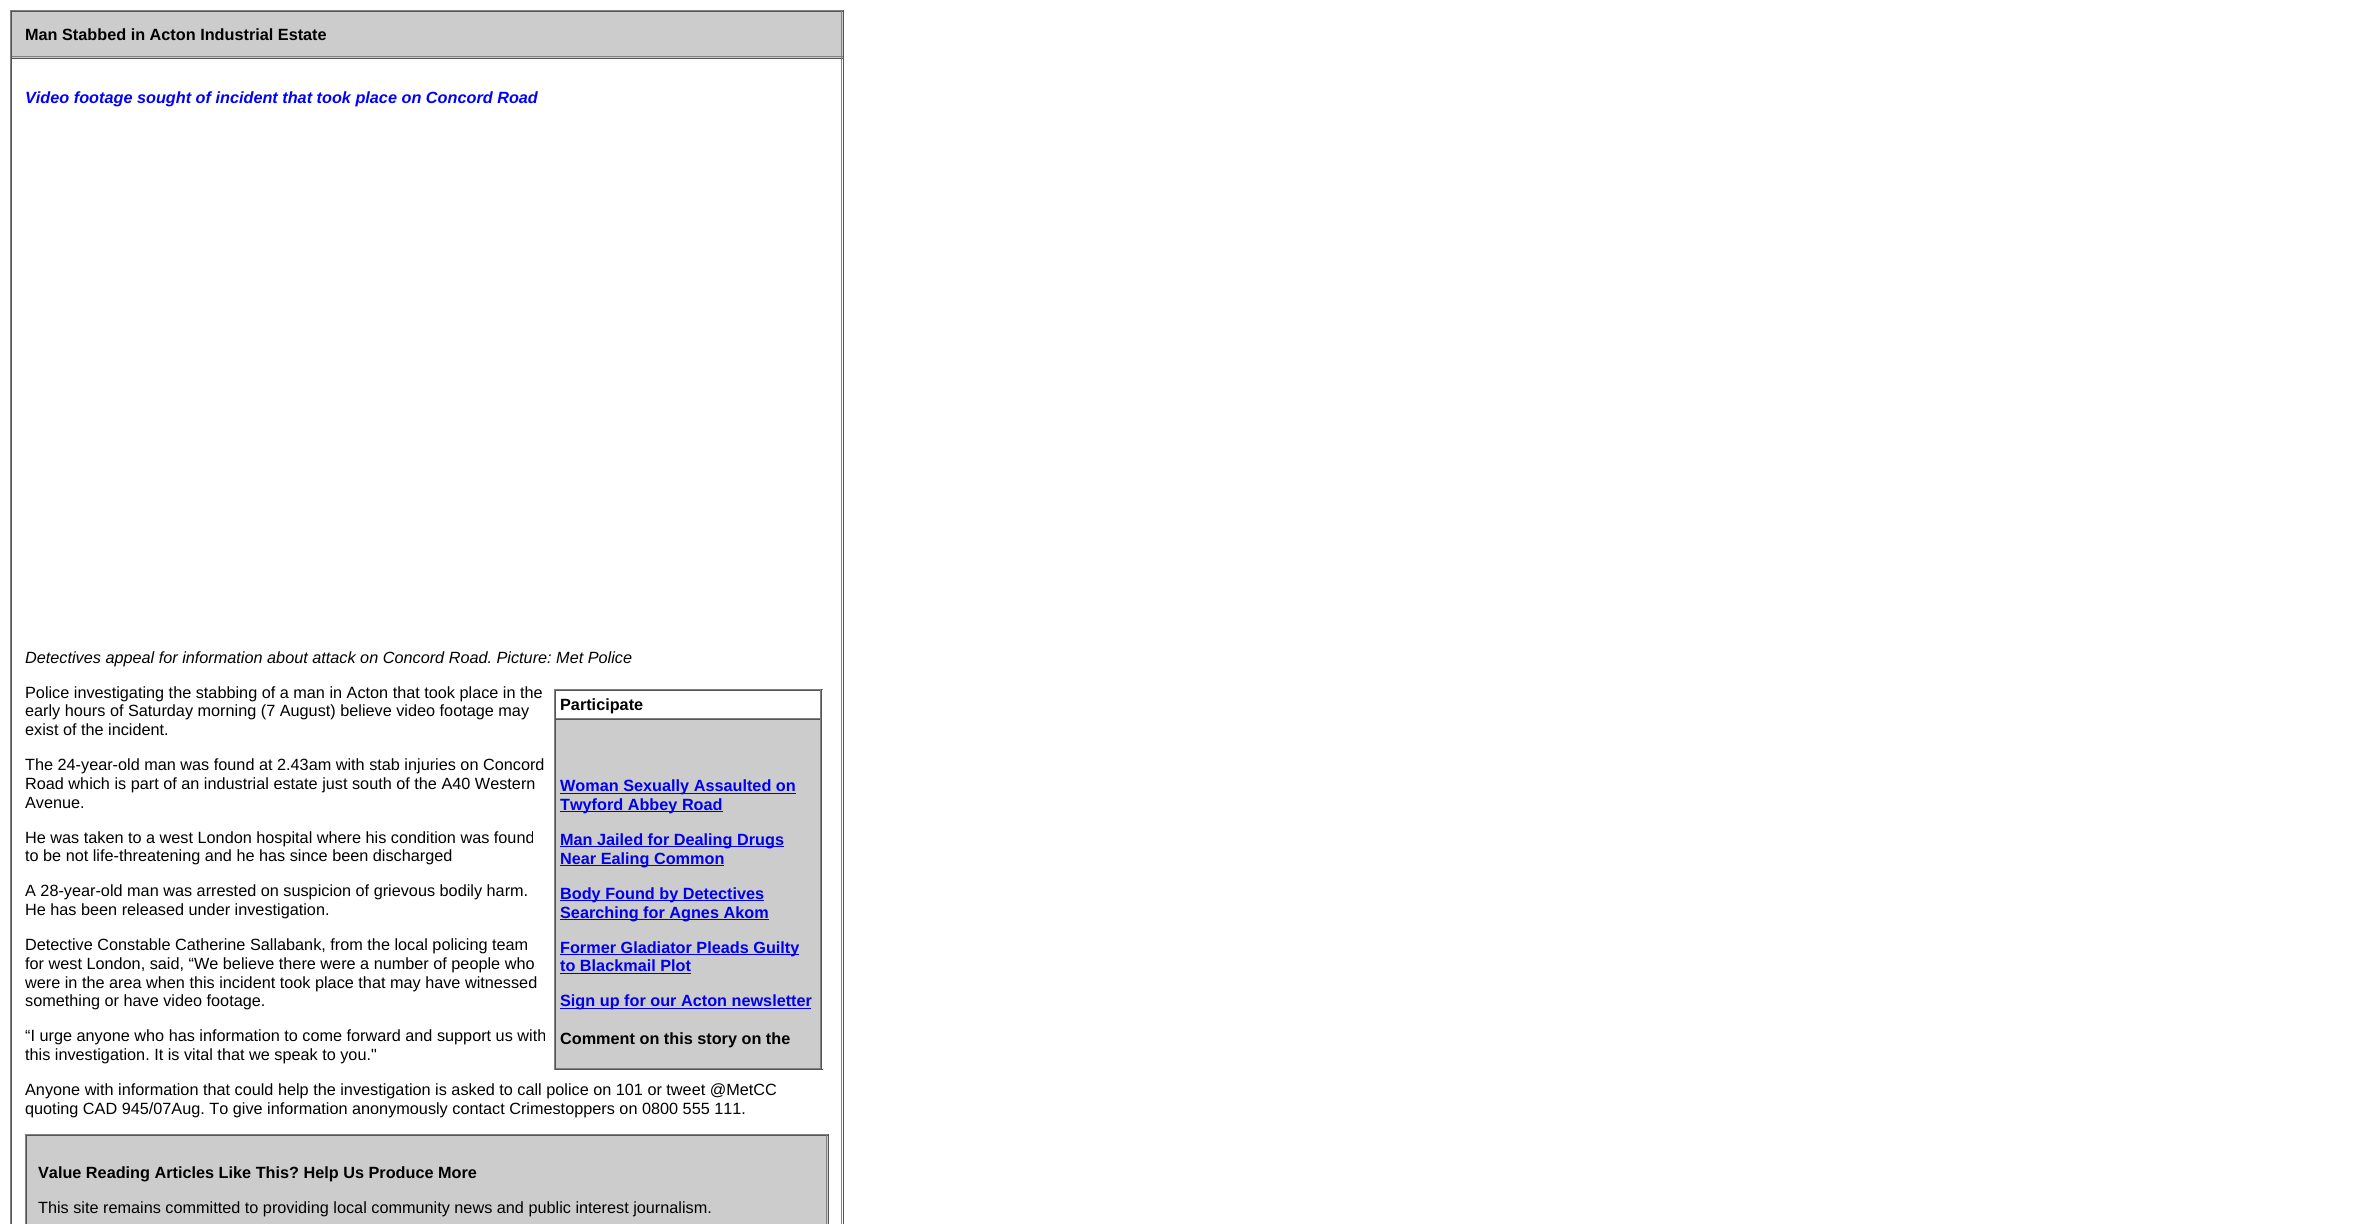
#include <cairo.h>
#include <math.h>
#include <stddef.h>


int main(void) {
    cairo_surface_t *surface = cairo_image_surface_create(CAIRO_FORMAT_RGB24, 2364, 1224);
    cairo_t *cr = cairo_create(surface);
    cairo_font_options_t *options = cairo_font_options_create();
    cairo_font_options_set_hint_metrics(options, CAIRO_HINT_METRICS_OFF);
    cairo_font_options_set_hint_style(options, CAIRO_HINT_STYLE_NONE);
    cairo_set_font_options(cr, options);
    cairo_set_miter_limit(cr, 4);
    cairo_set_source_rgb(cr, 1, 1, 1);
    cairo_paint(cr);
    cairo_set_source_rgb(cr, 0.502, 0.502, 0.502);
    cairo_rectangle(cr, 10, 10, 834, 1);
    cairo_fill(cr);
    cairo_set_source_rgb(cr, 0.333, 0.333, 0.333);
    cairo_rectangle(cr, 843, 10, 1, 1214);
    cairo_fill(cr);
    cairo_set_source_rgb(cr, 0.502, 0.502, 0.502);
    cairo_rectangle(cr, 10, 10, 1, 1214);
    cairo_fill(cr);
    cairo_set_source_rgb(cr, 0.8, 0.8, 0.8);
    cairo_rectangle(cr, 12, 12, 831, 46);
    cairo_fill(cr);
    cairo_set_source_rgb(cr, 0.333, 0.333, 0.333);
    cairo_rectangle(cr, 11, 11, 832, 1);
    cairo_fill(cr);
    cairo_set_source_rgb(cr, 0.502, 0.502, 0.502);
    cairo_rectangle(cr, 841, 11, 1, 47);
    cairo_fill(cr);
    cairo_rectangle(cr, 11, 56, 832, 1);
    cairo_fill(cr);
    cairo_set_source_rgb(cr, 0.333, 0.333, 0.333);
    cairo_rectangle(cr, 11, 11, 1, 47);
    cairo_fill(cr);
    cairo_select_font_face(cr, "Liberation Sans", CAIRO_FONT_SLANT_NORMAL, CAIRO_FONT_WEIGHT_BOLD);
    cairo_set_font_size(cr, 16.25);
    cairo_set_source_rgb(cr, 0, 0, 0);
    cairo_move_to(cr, 25, 40);
    cairo_show_text(cr, "Man Stabbed in Acton Industrial Estate");
    cairo_set_source_rgb(cr, 0.333, 0.333, 0.333);
    cairo_rectangle(cr, 11, 58, 832, 1);
    cairo_fill(cr);
    cairo_set_source_rgb(cr, 0.502, 0.502, 0.502);
    cairo_rectangle(cr, 841, 58, 1, 1166);
    cairo_fill(cr);
    cairo_set_source_rgb(cr, 0.333, 0.333, 0.333);
    cairo_rectangle(cr, 11, 58, 1, 1166);
    cairo_fill(cr);
    cairo_select_font_face(cr, "Liberation Sans", CAIRO_FONT_SLANT_ITALIC, CAIRO_FONT_WEIGHT_BOLD);
    cairo_set_source_rgb(cr, 0, 0, 1);
    cairo_move_to(cr, 25, 103);
    cairo_show_text(cr, "Video footage sought of incident that took place on Concord Road");
    cairo_select_font_face(cr, "Liberation Sans", CAIRO_FONT_SLANT_ITALIC, CAIRO_FONT_WEIGHT_NORMAL);
    cairo_set_source_rgb(cr, 0, 0, 0);
    cairo_move_to(cr, 25, 663);
    cairo_show_text(cr, "Detectives appeal for information about attack on Concord Road. Picture: Met Police");
    cairo_select_font_face(cr, "Liberation Sans", CAIRO_FONT_SLANT_NORMAL, CAIRO_FONT_WEIGHT_NORMAL);
    cairo_move_to(cr, 25, 698);
    cairo_show_text(cr, "Police investigating the stabbing of a man in Acton that took place in the");
    cairo_move_to(cr, 25, 716);
    cairo_show_text(cr, "early hours of Saturday morning (7 August) believe video footage may");
    cairo_move_to(cr, 25, 735);
    cairo_show_text(cr, "exist of the incident.");
    cairo_set_source_rgb(cr, 0.502, 0.502, 0.502);
    cairo_rectangle(cr, 554, 689, 269, 1);
    cairo_fill(cr);
    cairo_set_source_rgb(cr, 0.333, 0.333, 0.333);
    cairo_rectangle(cr, 821, 689, 1, 381);
    cairo_fill(cr);
    cairo_rectangle(cr, 554, 1069, 269, 1);
    cairo_fill(cr);
    cairo_set_source_rgb(cr, 0.502, 0.502, 0.502);
    cairo_rectangle(cr, 554, 689, 1, 381);
    cairo_fill(cr);
    cairo_set_source_rgb(cr, 0.333, 0.333, 0.333);
    cairo_rectangle(cr, 555, 690, 266, 1);
    cairo_fill(cr);
    cairo_set_source_rgb(cr, 0.502, 0.502, 0.502);
    cairo_rectangle(cr, 820, 690, 1, 29);
    cairo_fill(cr);
    cairo_rectangle(cr, 555, 718, 266, 1);
    cairo_fill(cr);
    cairo_set_source_rgb(cr, 0.333, 0.333, 0.333);
    cairo_rectangle(cr, 555, 690, 1, 29);
    cairo_fill(cr);
    cairo_select_font_face(cr, "Liberation Sans", CAIRO_FONT_SLANT_NORMAL, CAIRO_FONT_WEIGHT_BOLD);
    cairo_set_source_rgb(cr, 0, 0, 0);
    cairo_move_to(cr, 560, 710);
    cairo_show_text(cr, "Participate");
    cairo_set_source_rgb(cr, 0.8, 0.8, 0.8);
    cairo_rectangle(cr, 556, 720, 264, 348);
    cairo_fill(cr);
    cairo_set_source_rgb(cr, 0.333, 0.333, 0.333);
    cairo_rectangle(cr, 555, 719, 266, 1);
    cairo_fill(cr);
    cairo_set_source_rgb(cr, 0.502, 0.502, 0.502);
    cairo_rectangle(cr, 820, 719, 1, 350);
    cairo_fill(cr);
    cairo_rectangle(cr, 555, 1068, 266, 1);
    cairo_fill(cr);
    cairo_set_source_rgb(cr, 0.333, 0.333, 0.333);
    cairo_rectangle(cr, 555, 719, 1, 350);
    cairo_fill(cr);
    cairo_set_source_rgb(cr, 0, 0, 0.933);
    cairo_rectangle(cr, 560, 793, 236, 1);
    cairo_fill(cr);
    cairo_move_to(cr, 560, 791);
    cairo_show_text(cr, "Woman Sexually Assaulted on");
    cairo_rectangle(cr, 560, 811, 163, 1);
    cairo_fill(cr);
    cairo_move_to(cr, 560, 810);
    cairo_show_text(cr, "Twyford Abbey Road");
    cairo_rectangle(cr, 560, 846, 224, 1);
    cairo_fill(cr);
    cairo_move_to(cr, 560, 845);
    cairo_show_text(cr, "Man Jailed for Dealing Drugs");
    cairo_rectangle(cr, 560, 865, 164, 1);
    cairo_fill(cr);
    cairo_move_to(cr, 560, 864);
    cairo_show_text(cr, "Near Ealing Common");
    cairo_rectangle(cr, 560, 900, 204, 1);
    cairo_fill(cr);
    cairo_move_to(cr, 560, 899);
    cairo_show_text(cr, "Body Found by Detectives");
    cairo_rectangle(cr, 560, 919, 209, 1);
    cairo_fill(cr);
    cairo_move_to(cr, 560, 918);
    cairo_show_text(cr, "Searching for Agnes Akom");
    cairo_rectangle(cr, 560, 954, 239, 1);
    cairo_fill(cr);
    cairo_move_to(cr, 560, 953);
    cairo_show_text(cr, "Former Gladiator Pleads Guilty");
    cairo_move_to(cr, 560, 971);
    cairo_show_text(cr, "to Blackmail Plot");
    cairo_rectangle(cr, 560, 973, 131, 1);
    cairo_fill(cr);
    cairo_rectangle(cr, 560, 1008, 251, 1);
    cairo_fill(cr);
    cairo_move_to(cr, 560, 1006);
    cairo_show_text(cr, "Sign up for our Acton newsletter");
    cairo_set_source_rgb(cr, 0, 0, 0);
    cairo_move_to(cr, 560, 1044);
    cairo_show_text(cr, "Comment on this story on the");
    cairo_select_font_face(cr, "Liberation Sans", CAIRO_FONT_SLANT_NORMAL, CAIRO_FONT_WEIGHT_NORMAL);
    cairo_move_to(cr, 25, 770);
    cairo_show_text(cr, "The 24-year-old man was found at 2.43am with stab injuries on Concord");
    cairo_move_to(cr, 25, 789);
    cairo_show_text(cr, "Road which is part of an industrial estate just south of the A40 Western");
    cairo_move_to(cr, 25, 808);
    cairo_show_text(cr, "Avenue.");
    cairo_move_to(cr, 25, 843);
    cairo_show_text(cr, "He was taken to a west London hospital where his condition was found");
    cairo_move_to(cr, 25, 861);
    cairo_show_text(cr, "to be not life-threatening and he has since been discharged");
    cairo_move_to(cr, 25, 896);
    cairo_show_text(cr, "A 28-year-old man was arrested on suspicion of grievous bodily harm.");
    cairo_move_to(cr, 25, 915);
    cairo_show_text(cr, "He has been released under investigation.");
    cairo_move_to(cr, 25, 950);
    cairo_show_text(cr, "Detective Constable Catherine Sallabank, from the local policing team");
    cairo_move_to(cr, 25, 969);
    cairo_show_text(cr, "for west London, said, “We believe there were a number of people who");
    cairo_move_to(cr, 25, 988);
    cairo_show_text(cr, "were in the area when this incident took place that may have witnessed");
    cairo_move_to(cr, 25, 1006);
    cairo_show_text(cr, "something or have video footage.");
    cairo_move_to(cr, 25, 1041);
    cairo_show_text(cr, "“I urge anyone who has information to come forward and support us with");
    cairo_move_to(cr, 25, 1060);
    cairo_show_text(cr, "this investigation. It is vital that we speak to you.\"");
    cairo_move_to(cr, 25, 1095);
    cairo_show_text(cr, "Anyone with information that could help the investigation is asked to call police on 101 or tweet @MetCC");
    cairo_move_to(cr, 25, 1114);
    cairo_show_text(cr, "quoting CAD 945/07Aug. To give information anonymously contact Crimestoppers on 0800 555 111.");
    cairo_set_source_rgb(cr, 0.502, 0.502, 0.502);
    cairo_rectangle(cr, 25, 1134, 804, 1);
    cairo_fill(cr);
    cairo_set_source_rgb(cr, 0.333, 0.333, 0.333);
    cairo_rectangle(cr, 828, 1134, 1, 90);
    cairo_fill(cr);
    cairo_set_source_rgb(cr, 0.502, 0.502, 0.502);
    cairo_rectangle(cr, 25, 1134, 1, 90);
    cairo_fill(cr);
    cairo_set_source_rgb(cr, 0.8, 0.8, 0.8);
    cairo_rectangle(cr, 27, 1136, 801, 88);
    cairo_fill(cr);
    cairo_set_source_rgb(cr, 0.333, 0.333, 0.333);
    cairo_rectangle(cr, 26, 1135, 802, 1);
    cairo_fill(cr);
    cairo_set_source_rgb(cr, 0.502, 0.502, 0.502);
    cairo_rectangle(cr, 826, 1135, 1, 89);
    cairo_fill(cr);
    cairo_set_source_rgb(cr, 0.333, 0.333, 0.333);
    cairo_rectangle(cr, 26, 1135, 1, 89);
    cairo_fill(cr);
    cairo_select_font_face(cr, "Liberation Sans", CAIRO_FONT_SLANT_NORMAL, CAIRO_FONT_WEIGHT_BOLD);
    cairo_set_source_rgb(cr, 0, 0, 0);
    cairo_move_to(cr, 38, 1178);
    cairo_show_text(cr, "Value Reading Articles Like This? Help Us Produce More");
    cairo_select_font_face(cr, "Liberation Sans", CAIRO_FONT_SLANT_NORMAL, CAIRO_FONT_WEIGHT_NORMAL);
    cairo_move_to(cr, 38, 1213);
    cairo_show_text(cr, "This site remains committed to providing local community news and public interest journalism.");
    cairo_surface_write_to_png(surface, "page.png");
    cairo_font_options_destroy(options);
    cairo_destroy(cr);
    cairo_surface_destroy(surface);
    return 0;
}
